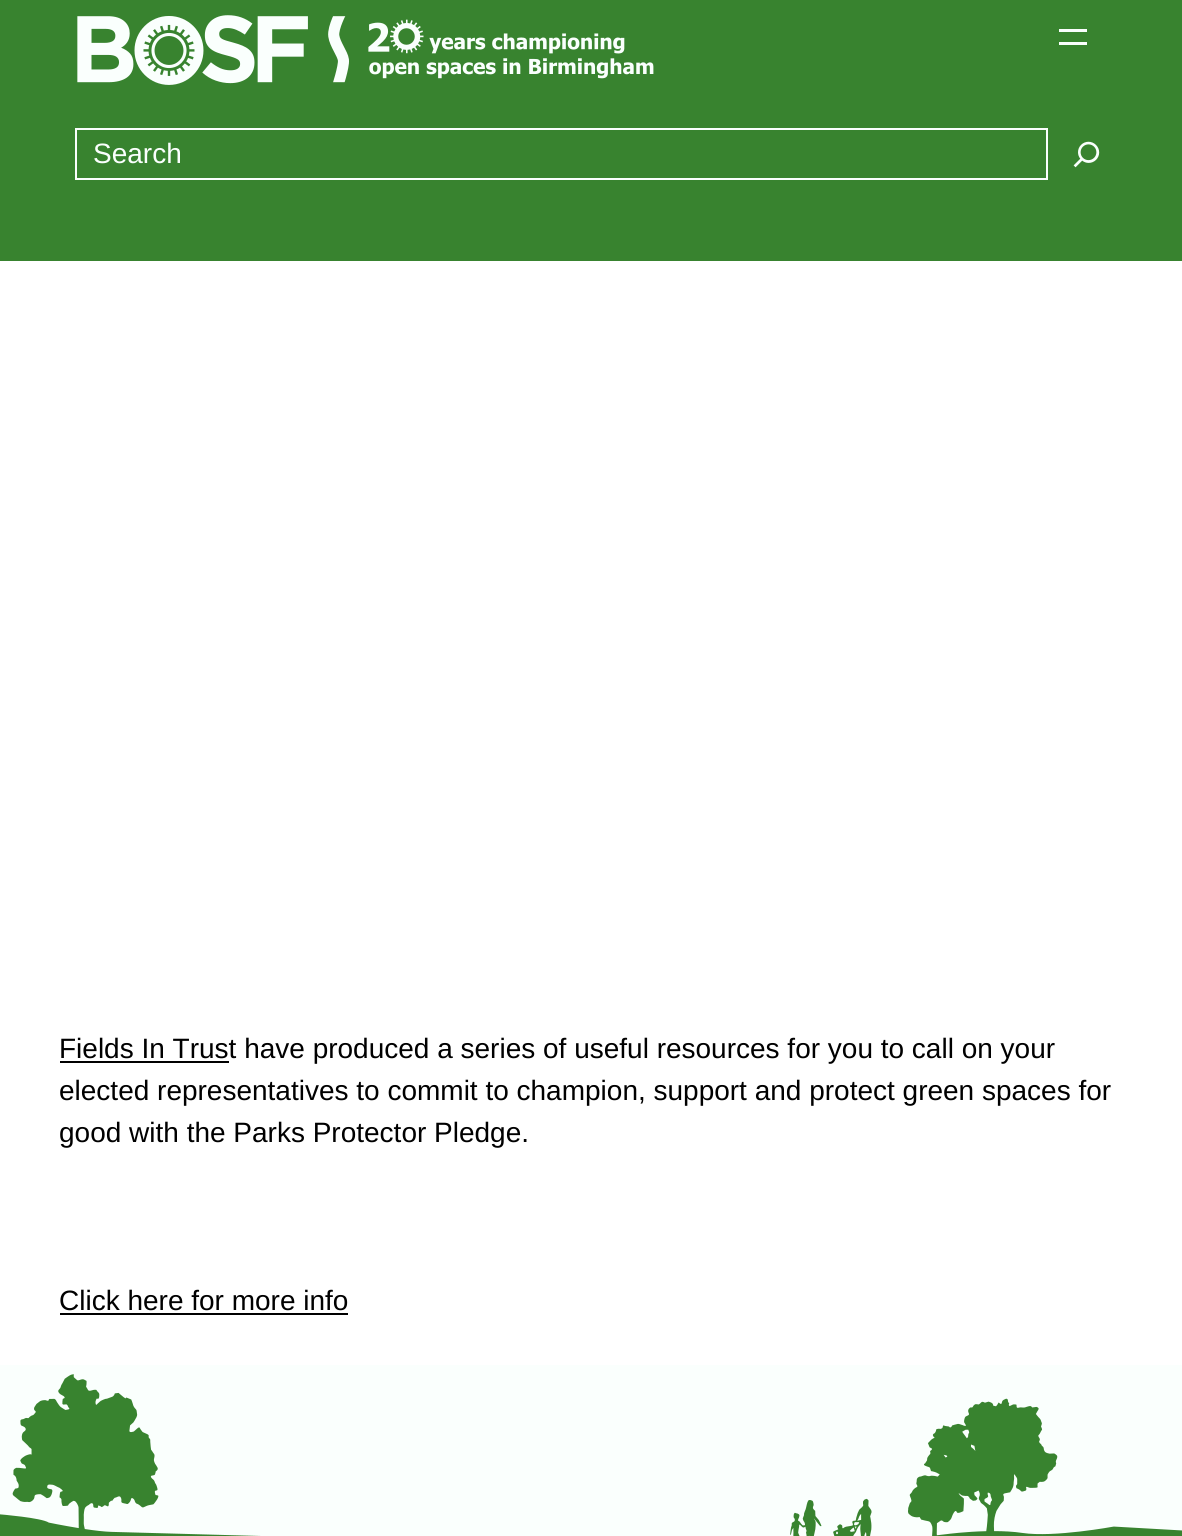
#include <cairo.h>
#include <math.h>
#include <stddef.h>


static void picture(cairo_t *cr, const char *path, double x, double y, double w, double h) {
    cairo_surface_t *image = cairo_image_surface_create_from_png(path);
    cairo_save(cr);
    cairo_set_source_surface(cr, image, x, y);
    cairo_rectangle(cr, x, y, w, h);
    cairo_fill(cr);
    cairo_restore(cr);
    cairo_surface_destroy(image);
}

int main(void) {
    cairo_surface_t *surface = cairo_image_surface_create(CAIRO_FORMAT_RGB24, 1182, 1536);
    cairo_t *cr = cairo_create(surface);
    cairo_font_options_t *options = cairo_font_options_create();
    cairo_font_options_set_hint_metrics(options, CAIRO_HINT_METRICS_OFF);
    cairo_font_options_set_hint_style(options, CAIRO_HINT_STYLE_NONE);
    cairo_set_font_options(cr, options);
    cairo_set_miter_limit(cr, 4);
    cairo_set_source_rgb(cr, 1, 1, 1);
    cairo_paint(cr);
    cairo_set_source_rgb(cr, 0.22, 0.514, 0.184);
    cairo_rectangle(cr, 0, 0, 1182, 261);
    cairo_fill(cr);
    picture(cr, "img1.png", 77, 15, 577, 70);
    cairo_set_source_rgb(cr, 0.98, 1, 0.992);
    cairo_rectangle(cr, 1059, 29, 28, 3);
    cairo_fill(cr);
    cairo_rectangle(cr, 1059, 42, 28, 3);
    cairo_fill(cr);
    cairo_rectangle(cr, 76, 129, 971, 50);
    cairo_stroke(cr);
    cairo_select_font_face(cr, "Liberation Sans", CAIRO_FONT_SLANT_NORMAL, CAIRO_FONT_WEIGHT_NORMAL);
    cairo_set_font_size(cr, 28);
    cairo_move_to(cr, 93, 163);
    cairo_show_text(cr, "Search");
    picture(cr, "img2.png", 1073, 141, 27, 27);
    cairo_set_source_rgb(cr, 0, 0, 0);
    cairo_rectangle(cr, 60, 1061, 169, 2);
    cairo_fill(cr);
    cairo_move_to(cr, 59, 1058);
    cairo_show_text(cr, "Fields In Trust have produced a series of useful resources for you to call on your");
    cairo_move_to(cr, 59, 1100);
    cairo_show_text(cr, "elected representatives to commit to champion, support and protect green spaces for");
    cairo_move_to(cr, 59, 1142);
    cairo_show_text(cr, "good with the Parks Protector Pledge.");
    cairo_move_to(cr, 59, 1310);
    cairo_show_text(cr, "Click here for more info");
    cairo_rectangle(cr, 60, 1313, 288, 2);
    cairo_fill(cr);
    cairo_set_source_rgb(cr, 0.98, 1, 0.992);
    cairo_rectangle(cr, 0, 1365, 1182, 171);
    cairo_fill(cr);
    picture(cr, "img3.png", 0, 1374, 1182, 162);
    cairo_surface_write_to_png(surface, "page.png");
    cairo_font_options_destroy(options);
    cairo_destroy(cr);
    cairo_surface_destroy(surface);
    return 0;
}
